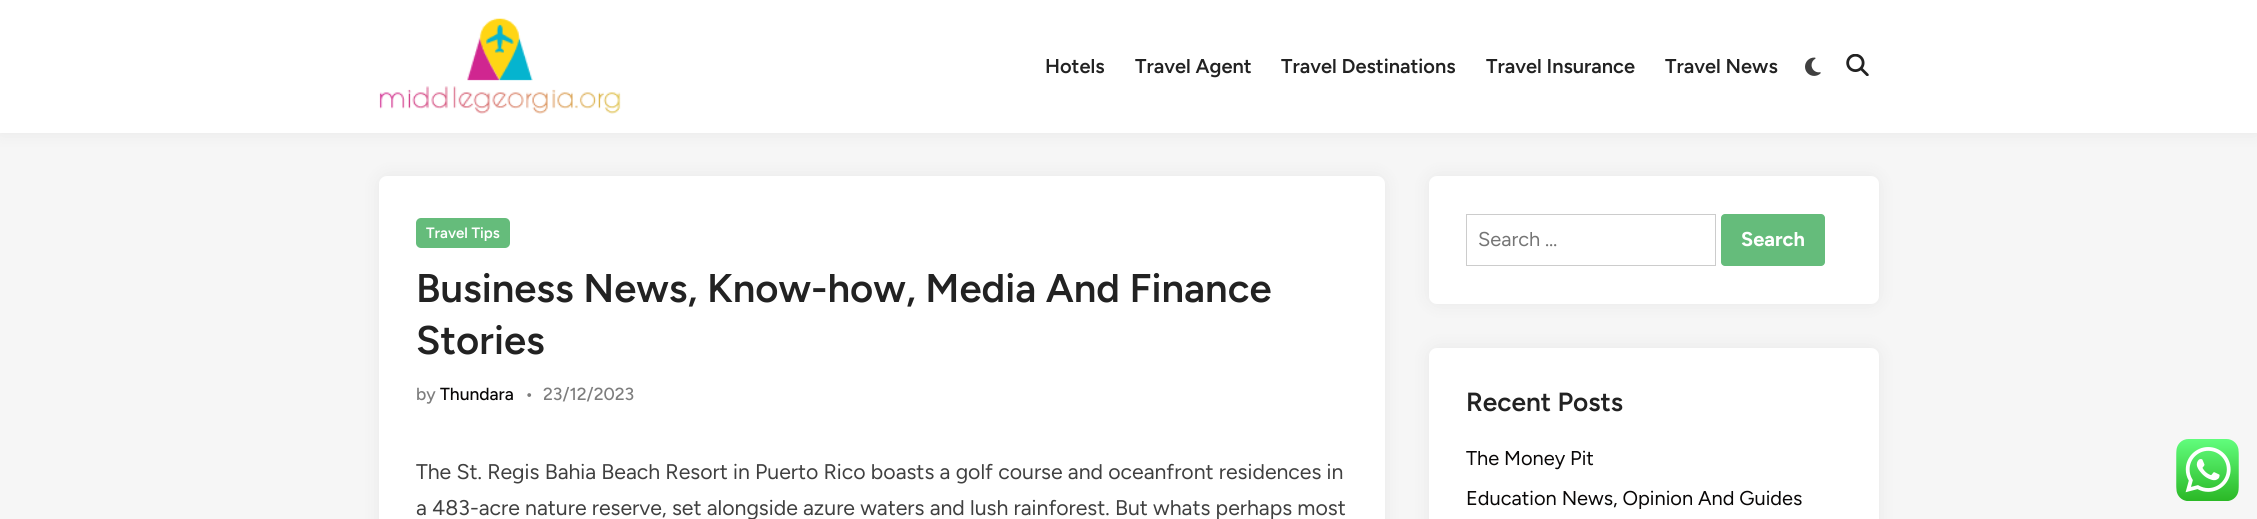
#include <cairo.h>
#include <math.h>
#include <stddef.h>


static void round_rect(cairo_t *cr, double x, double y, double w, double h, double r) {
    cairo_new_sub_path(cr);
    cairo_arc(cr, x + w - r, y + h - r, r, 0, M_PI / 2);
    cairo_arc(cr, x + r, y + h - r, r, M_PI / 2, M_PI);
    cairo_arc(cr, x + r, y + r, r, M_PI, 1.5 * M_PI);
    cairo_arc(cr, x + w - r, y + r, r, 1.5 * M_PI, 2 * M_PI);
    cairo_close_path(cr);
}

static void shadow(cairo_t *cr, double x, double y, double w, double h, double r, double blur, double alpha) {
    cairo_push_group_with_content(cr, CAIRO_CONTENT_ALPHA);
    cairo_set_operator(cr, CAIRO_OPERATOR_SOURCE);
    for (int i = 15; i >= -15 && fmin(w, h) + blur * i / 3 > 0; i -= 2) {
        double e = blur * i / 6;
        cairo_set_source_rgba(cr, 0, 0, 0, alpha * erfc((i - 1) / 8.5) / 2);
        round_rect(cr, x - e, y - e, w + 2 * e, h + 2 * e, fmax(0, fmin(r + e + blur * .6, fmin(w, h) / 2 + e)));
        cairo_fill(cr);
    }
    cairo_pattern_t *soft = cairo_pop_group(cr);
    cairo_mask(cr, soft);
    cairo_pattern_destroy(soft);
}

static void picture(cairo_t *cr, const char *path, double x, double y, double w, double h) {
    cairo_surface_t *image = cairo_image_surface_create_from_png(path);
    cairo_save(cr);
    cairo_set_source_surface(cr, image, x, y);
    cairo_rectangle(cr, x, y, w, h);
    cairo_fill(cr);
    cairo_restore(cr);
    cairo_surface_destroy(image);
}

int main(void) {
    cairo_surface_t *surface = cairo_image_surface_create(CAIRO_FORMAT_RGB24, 2257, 519);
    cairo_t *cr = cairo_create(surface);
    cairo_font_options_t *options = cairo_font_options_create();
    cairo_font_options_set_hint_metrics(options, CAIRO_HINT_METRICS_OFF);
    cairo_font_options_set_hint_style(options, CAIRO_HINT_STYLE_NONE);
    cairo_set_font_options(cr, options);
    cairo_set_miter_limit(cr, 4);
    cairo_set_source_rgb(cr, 0.961, 0.961, 0.961);
    cairo_paint(cr);
    cairo_set_source_rgb(cr, 0, 0, 0);
    shadow(cr, 0, 0, 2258, 133, 0, 9.5, 0.06);
    cairo_set_source_rgb(cr, 1, 1, 1);
    cairo_rectangle(cr, 0, 0, 2257, 133);
    cairo_fill(cr);
    picture(cr, "img1.png", 379, 18, 242, 96);
    cairo_select_font_face(cr, "Figtree SemiBold", CAIRO_FONT_SLANT_NORMAL, CAIRO_FONT_WEIGHT_NORMAL);
    cairo_set_font_size(cr, 20);
    cairo_set_source_rgb(cr, 0.133, 0.133, 0.133);
    cairo_move_to(cr, 1045, 73);
    cairo_show_text(cr, "Hotels");
    cairo_move_to(cr, 1135, 73);
    cairo_show_text(cr, "Travel Agent");
    cairo_move_to(cr, 1281, 73);
    cairo_show_text(cr, "Travel Destinations");
    cairo_move_to(cr, 1486, 73);
    cairo_show_text(cr, "Travel Insurance");
    cairo_move_to(cr, 1665, 73);
    cairo_show_text(cr, "Travel News");
    picture(cr, "img2.png", 1805, 57, 16, 19);
    picture(cr, "img3.png", 1846, 54, 23, 22);
    cairo_set_source_rgb(cr, 0, 0, 0);
    shadow(cr, 379, 176, 1006, 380, 8, 9.5, 0.06);
    cairo_set_source_rgb(cr, 1, 1, 1);
    round_rect(cr, 379, 176, 1006, 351, 8);
    cairo_fill(cr);
    cairo_set_source_rgb(cr, 0.396, 0.737, 0.482);
    round_rect(cr, 416, 218, 94, 30, 5);
    cairo_fill(cr);
    cairo_set_font_size(cr, 15);
    cairo_set_source_rgb(cr, 1, 1, 1);
    cairo_move_to(cr, 426, 238);
    cairo_show_text(cr, "Travel Tips");
    cairo_set_font_size(cr, 40);
    cairo_set_source_rgb(cr, 0.133, 0.133, 0.133);
    cairo_move_to(cr, 416, 302);
    cairo_show_text(cr, "Business News, Know-how, Media And Finance");
    cairo_move_to(cr, 416, 354);
    cairo_show_text(cr, "Stories");
    cairo_select_font_face(cr, "Figtree Medium", CAIRO_FONT_SLANT_NORMAL, CAIRO_FONT_WEIGHT_NORMAL);
    cairo_set_font_size(cr, 17.5);
    cairo_set_source_rgb(cr, 0.49, 0.49, 0.49);
    cairo_move_to(cr, 416, 400);
    cairo_show_text(cr, "by");
    cairo_set_source_rgb(cr, 0.039, 0.031, 0.031);
    cairo_move_to(cr, 440, 400);
    cairo_show_text(cr, "Thundara");
    cairo_set_source_rgb(cr, 0.49, 0.49, 0.49);
    cairo_move_to(cr, 525, 400);
    cairo_show_text(cr, "•");
    cairo_move_to(cr, 543, 400);
    cairo_show_text(cr, "23/12/2023");
    cairo_select_font_face(cr, "Figtree", CAIRO_FONT_SLANT_NORMAL, CAIRO_FONT_WEIGHT_NORMAL);
    cairo_set_font_size(cr, 21.25);
    cairo_set_source_rgb(cr, 0.251, 0.251, 0.251);
    cairo_move_to(cr, 416, 479);
    cairo_show_text(cr, "The St. Regis Bahia Beach Resort in Puerto Rico boasts a golf course and oceanfront residences in");
    cairo_move_to(cr, 416, 515);
    cairo_show_text(cr, "a 483-acre nature reserve, set alongside azure waters and lush rainforest. But whats perhaps most");
    cairo_set_source_rgb(cr, 0, 0, 0);
    shadow(cr, 1429, 176, 450, 128, 8, 9.5, 0.06);
    cairo_set_source_rgb(cr, 1, 1, 1);
    round_rect(cr, 1429, 176, 450, 128, 8);
    cairo_fill(cr);
    cairo_rectangle(cr, 1466.5, 214.5, 249, 51);
    cairo_set_source_rgb(cr, 0.8, 0.8, 0.8);
    cairo_set_line_width(cr, 1);
    cairo_stroke(cr);
    cairo_set_font_size(cr, 20);
    cairo_set_source_rgb(cr, 0.459, 0.459, 0.459);
    cairo_move_to(cr, 1478, 246);
    cairo_show_text(cr, "Search …");
    cairo_set_source_rgb(cr, 0.396, 0.737, 0.482);
    round_rect(cr, 1721, 214, 104, 52, 4);
    cairo_fill(cr);
    cairo_select_font_face(cr, "Figtree", CAIRO_FONT_SLANT_NORMAL, CAIRO_FONT_WEIGHT_BOLD);
    cairo_set_source_rgb(cr, 1, 1, 1);
    cairo_move_to(cr, 1741, 246);
    cairo_show_text(cr, "Search");
    cairo_set_source_rgb(cr, 0, 0, 0);
    shadow(cr, 1429, 348, 450, 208, 8, 9.5, 0.06);
    cairo_set_source_rgb(cr, 1, 1, 1);
    round_rect(cr, 1429, 348, 450, 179, 8);
    cairo_fill(cr);
    cairo_select_font_face(cr, "Figtree SemiBold", CAIRO_FONT_SLANT_NORMAL, CAIRO_FONT_WEIGHT_NORMAL);
    cairo_set_font_size(cr, 26.25);
    cairo_set_source_rgb(cr, 0.133, 0.133, 0.133);
    cairo_move_to(cr, 1466, 411);
    cairo_show_text(cr, "Recent Posts");
    cairo_select_font_face(cr, "Figtree", CAIRO_FONT_SLANT_NORMAL, CAIRO_FONT_WEIGHT_NORMAL);
    cairo_set_font_size(cr, 20);
    cairo_set_source_rgb(cr, 0.039, 0.031, 0.031);
    cairo_move_to(cr, 1466, 465);
    cairo_show_text(cr, "The Money Pit");
    cairo_move_to(cr, 1466, 505);
    cairo_show_text(cr, "Education News, Opinion And Guides");
    picture(cr, "img4.png", 2176, 439, 63, 62);
    cairo_surface_write_to_png(surface, "page.png");
    cairo_font_options_destroy(options);
    cairo_destroy(cr);
    cairo_surface_destroy(surface);
    return 0;
}
